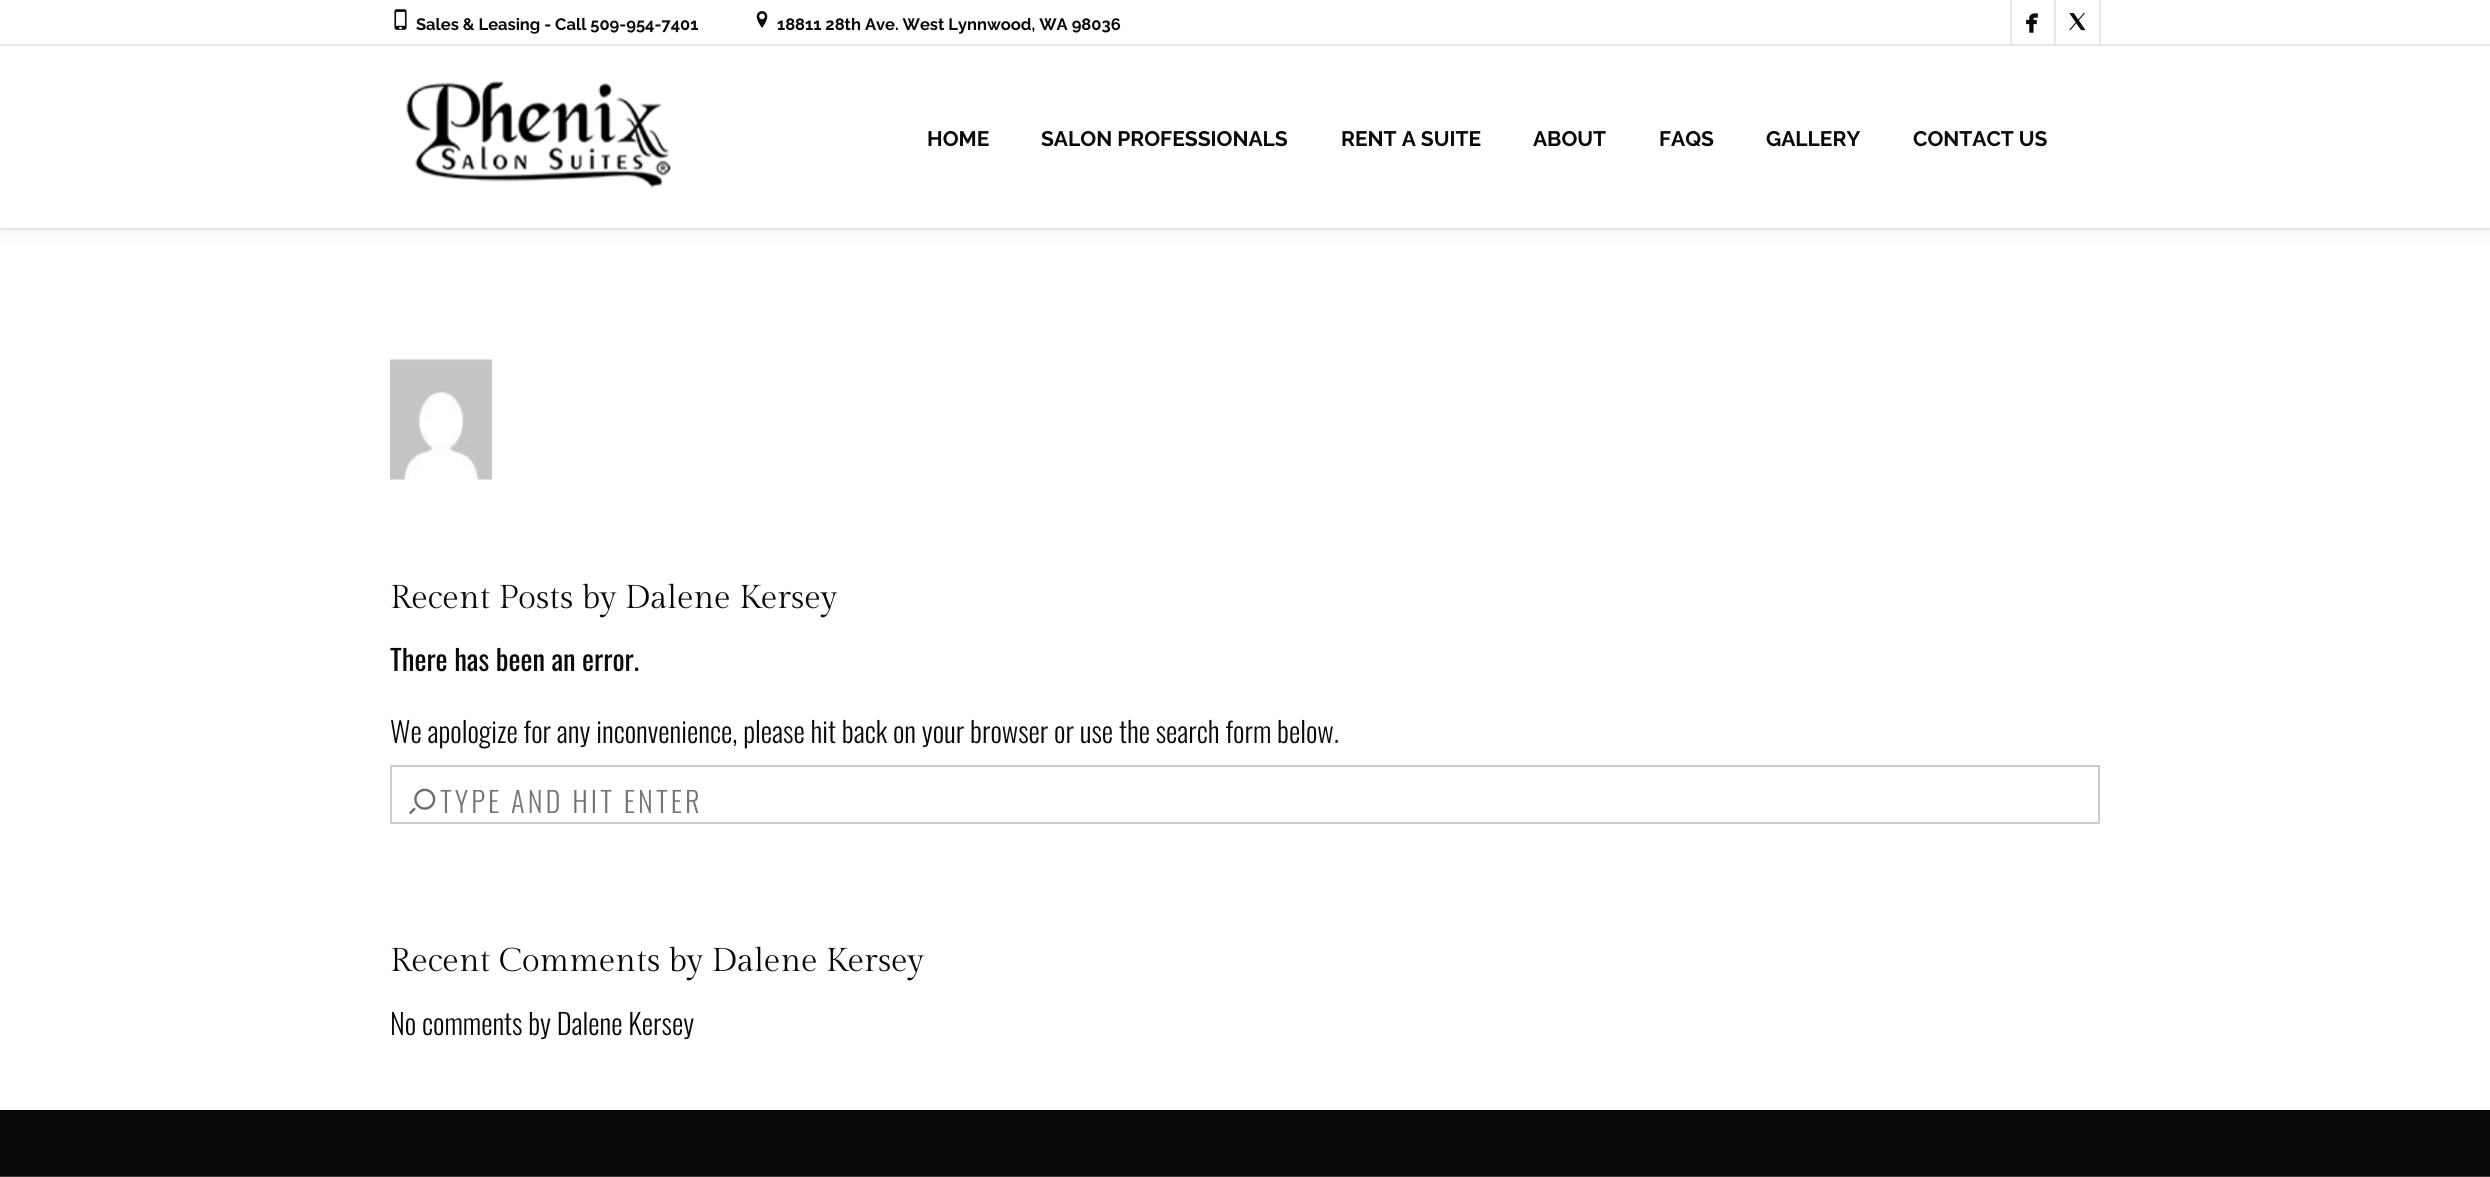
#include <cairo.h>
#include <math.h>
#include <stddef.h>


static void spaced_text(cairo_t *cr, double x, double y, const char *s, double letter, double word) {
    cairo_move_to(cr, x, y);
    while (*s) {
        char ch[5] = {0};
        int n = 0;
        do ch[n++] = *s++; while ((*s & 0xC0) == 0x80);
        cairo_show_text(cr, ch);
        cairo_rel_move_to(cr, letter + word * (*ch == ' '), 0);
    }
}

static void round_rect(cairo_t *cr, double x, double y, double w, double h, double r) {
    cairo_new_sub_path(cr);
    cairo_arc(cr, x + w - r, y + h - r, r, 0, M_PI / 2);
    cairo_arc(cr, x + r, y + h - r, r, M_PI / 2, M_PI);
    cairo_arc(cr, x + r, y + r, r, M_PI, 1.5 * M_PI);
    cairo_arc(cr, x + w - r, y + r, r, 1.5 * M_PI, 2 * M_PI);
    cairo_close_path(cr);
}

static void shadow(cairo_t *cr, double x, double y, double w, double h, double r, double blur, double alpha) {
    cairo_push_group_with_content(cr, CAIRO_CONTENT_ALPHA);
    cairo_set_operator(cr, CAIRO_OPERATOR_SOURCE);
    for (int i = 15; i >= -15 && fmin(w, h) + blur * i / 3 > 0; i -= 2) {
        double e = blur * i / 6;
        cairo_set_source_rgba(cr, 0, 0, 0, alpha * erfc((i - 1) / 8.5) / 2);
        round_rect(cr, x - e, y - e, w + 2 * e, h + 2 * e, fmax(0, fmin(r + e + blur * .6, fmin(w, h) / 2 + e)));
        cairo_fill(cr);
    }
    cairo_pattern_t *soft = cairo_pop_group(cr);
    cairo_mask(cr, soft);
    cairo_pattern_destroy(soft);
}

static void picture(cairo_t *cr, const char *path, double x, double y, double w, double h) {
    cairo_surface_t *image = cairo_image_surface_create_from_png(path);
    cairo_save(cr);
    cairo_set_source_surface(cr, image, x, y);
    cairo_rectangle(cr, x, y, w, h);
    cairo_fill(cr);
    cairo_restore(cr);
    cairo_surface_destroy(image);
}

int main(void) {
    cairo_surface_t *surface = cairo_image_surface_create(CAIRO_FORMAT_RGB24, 2490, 1177);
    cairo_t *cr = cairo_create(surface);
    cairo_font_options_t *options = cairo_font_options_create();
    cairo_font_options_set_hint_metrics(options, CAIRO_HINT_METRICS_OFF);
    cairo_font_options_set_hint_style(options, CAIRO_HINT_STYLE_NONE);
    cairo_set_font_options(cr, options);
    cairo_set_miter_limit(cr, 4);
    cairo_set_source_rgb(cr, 1, 1, 1);
    cairo_paint(cr);
    cairo_set_source_rgb(cr, 0, 0, 0);
    shadow(cr, 0, 3, 2490, 230, 0, 7.5, 0.05);
    cairo_set_source_rgb(cr, 1, 1, 1);
    cairo_rectangle(cr, 0, 0, 2490, 228);
    cairo_fill(cr);
    cairo_set_source_rgb(cr, 0.906, 0.906, 0.906);
    cairo_rectangle(cr, 0, 228, 2490, 2);
    cairo_fill(cr);
    cairo_rectangle(cr, 0, 44, 2490, 2);
    cairo_fill(cr);
    picture(cr, "img1.png", 394, 9, 13, 21);
    cairo_select_font_face(cr, "Raleway", CAIRO_FONT_SLANT_NORMAL, CAIRO_FONT_WEIGHT_BOLD);
    cairo_set_font_size(cr, 16.5);
    cairo_set_source_rgb(cr, 0.039, 0.039, 0.039);
    cairo_move_to(cr, 416, 30);
    cairo_show_text(cr, "Sales & Leasing - Call 509-954-7401");
    picture(cr, "img2.png", 756, 11, 12, 17);
    cairo_move_to(cr, 777, 30);
    cairo_show_text(cr, "18811 28th Ave. West Lynnwood, WA 98036");
    cairo_set_source_rgb(cr, 0.906, 0.906, 0.906);
    cairo_rectangle(cr, 2054, 0, 2, 44);
    cairo_fill(cr);
    cairo_rectangle(cr, 2010, 0, 2, 44);
    cairo_fill(cr);
    picture(cr, "img3.png", 2026, 13, 12, 20);
    cairo_rectangle(cr, 2099, 0, 2, 44);
    cairo_fill(cr);
    picture(cr, "img4.png", 2069, 13, 17, 18);
    picture(cr, "img5.png", 406, 81, 265, 108);
    cairo_set_font_size(cr, 21);
    cairo_set_source_rgb(cr, 0.039, 0.039, 0.039);
    cairo_move_to(cr, 927, 146);
    cairo_show_text(cr, "HOME");
    cairo_move_to(cr, 1041, 146);
    cairo_show_text(cr, "SALON PROFESSIONALS");
    cairo_move_to(cr, 1341, 146);
    cairo_show_text(cr, "RENT A SUITE");
    cairo_move_to(cr, 1533, 146);
    cairo_show_text(cr, "ABOUT");
    cairo_move_to(cr, 1659, 146);
    cairo_show_text(cr, "FAQS");
    cairo_move_to(cr, 1766, 146);
    cairo_show_text(cr, "GALLERY");
    cairo_move_to(cr, 1913, 146);
    cairo_show_text(cr, "CONTACT US");
    picture(cr, "img6.png", 390, 359, 103, 121);
    cairo_select_font_face(cr, "Gilda Display", CAIRO_FONT_SLANT_NORMAL, CAIRO_FONT_WEIGHT_NORMAL);
    cairo_set_font_size(cr, 33);
    cairo_move_to(cr, 390, 608);
    cairo_show_text(cr, "Recent Posts by Dalene Kersey");
    cairo_select_font_face(cr, "Oswald", CAIRO_FONT_SLANT_NORMAL, CAIRO_FONT_WEIGHT_NORMAL);
    cairo_set_font_size(cr, 28.5);
    cairo_move_to(cr, 390, 671);
    cairo_show_text(cr, "There has been an error.");
    cairo_select_font_face(cr, "Oswald Light", CAIRO_FONT_SLANT_NORMAL, CAIRO_FONT_WEIGHT_NORMAL);
    cairo_move_to(cr, 390, 743);
    cairo_show_text(cr, "We apologize for any inconvenience, please hit back on your browser or use the search form below.");
    cairo_rectangle(cr, 391, 766, 1708, 57);
    cairo_set_source_rgb(cr, 0.8, 0.8, 0.8);
    cairo_stroke(cr);
    picture(cr, "img7.png", 409, 788, 27, 27);
    cairo_set_source_rgb(cr, 0.459, 0.459, 0.459);
    spaced_text(cr, 440, 813, "TYPE AND HIT ENTER", 3, 0);
    cairo_select_font_face(cr, "Gilda Display", CAIRO_FONT_SLANT_NORMAL, CAIRO_FONT_WEIGHT_NORMAL);
    cairo_set_font_size(cr, 33);
    cairo_set_source_rgb(cr, 0.039, 0.039, 0.039);
    cairo_move_to(cr, 390, 971);
    cairo_show_text(cr, "Recent Comments by Dalene Kersey");
    cairo_select_font_face(cr, "Oswald Light", CAIRO_FONT_SLANT_NORMAL, CAIRO_FONT_WEIGHT_NORMAL);
    cairo_set_font_size(cr, 28.5);
    cairo_move_to(cr, 390, 1035);
    cairo_show_text(cr, "No comments by Dalene Kersey");
    cairo_rectangle(cr, 0, 1110, 2490, 66);
    cairo_fill(cr);
    cairo_set_source_rgb(cr, 0.231, 0.231, 0.231);
    cairo_rectangle(cr, 0, 1176, 2490, 1);
    cairo_fill(cr);
    cairo_surface_write_to_png(surface, "page.png");
    cairo_font_options_destroy(options);
    cairo_destroy(cr);
    cairo_surface_destroy(surface);
    return 0;
}
